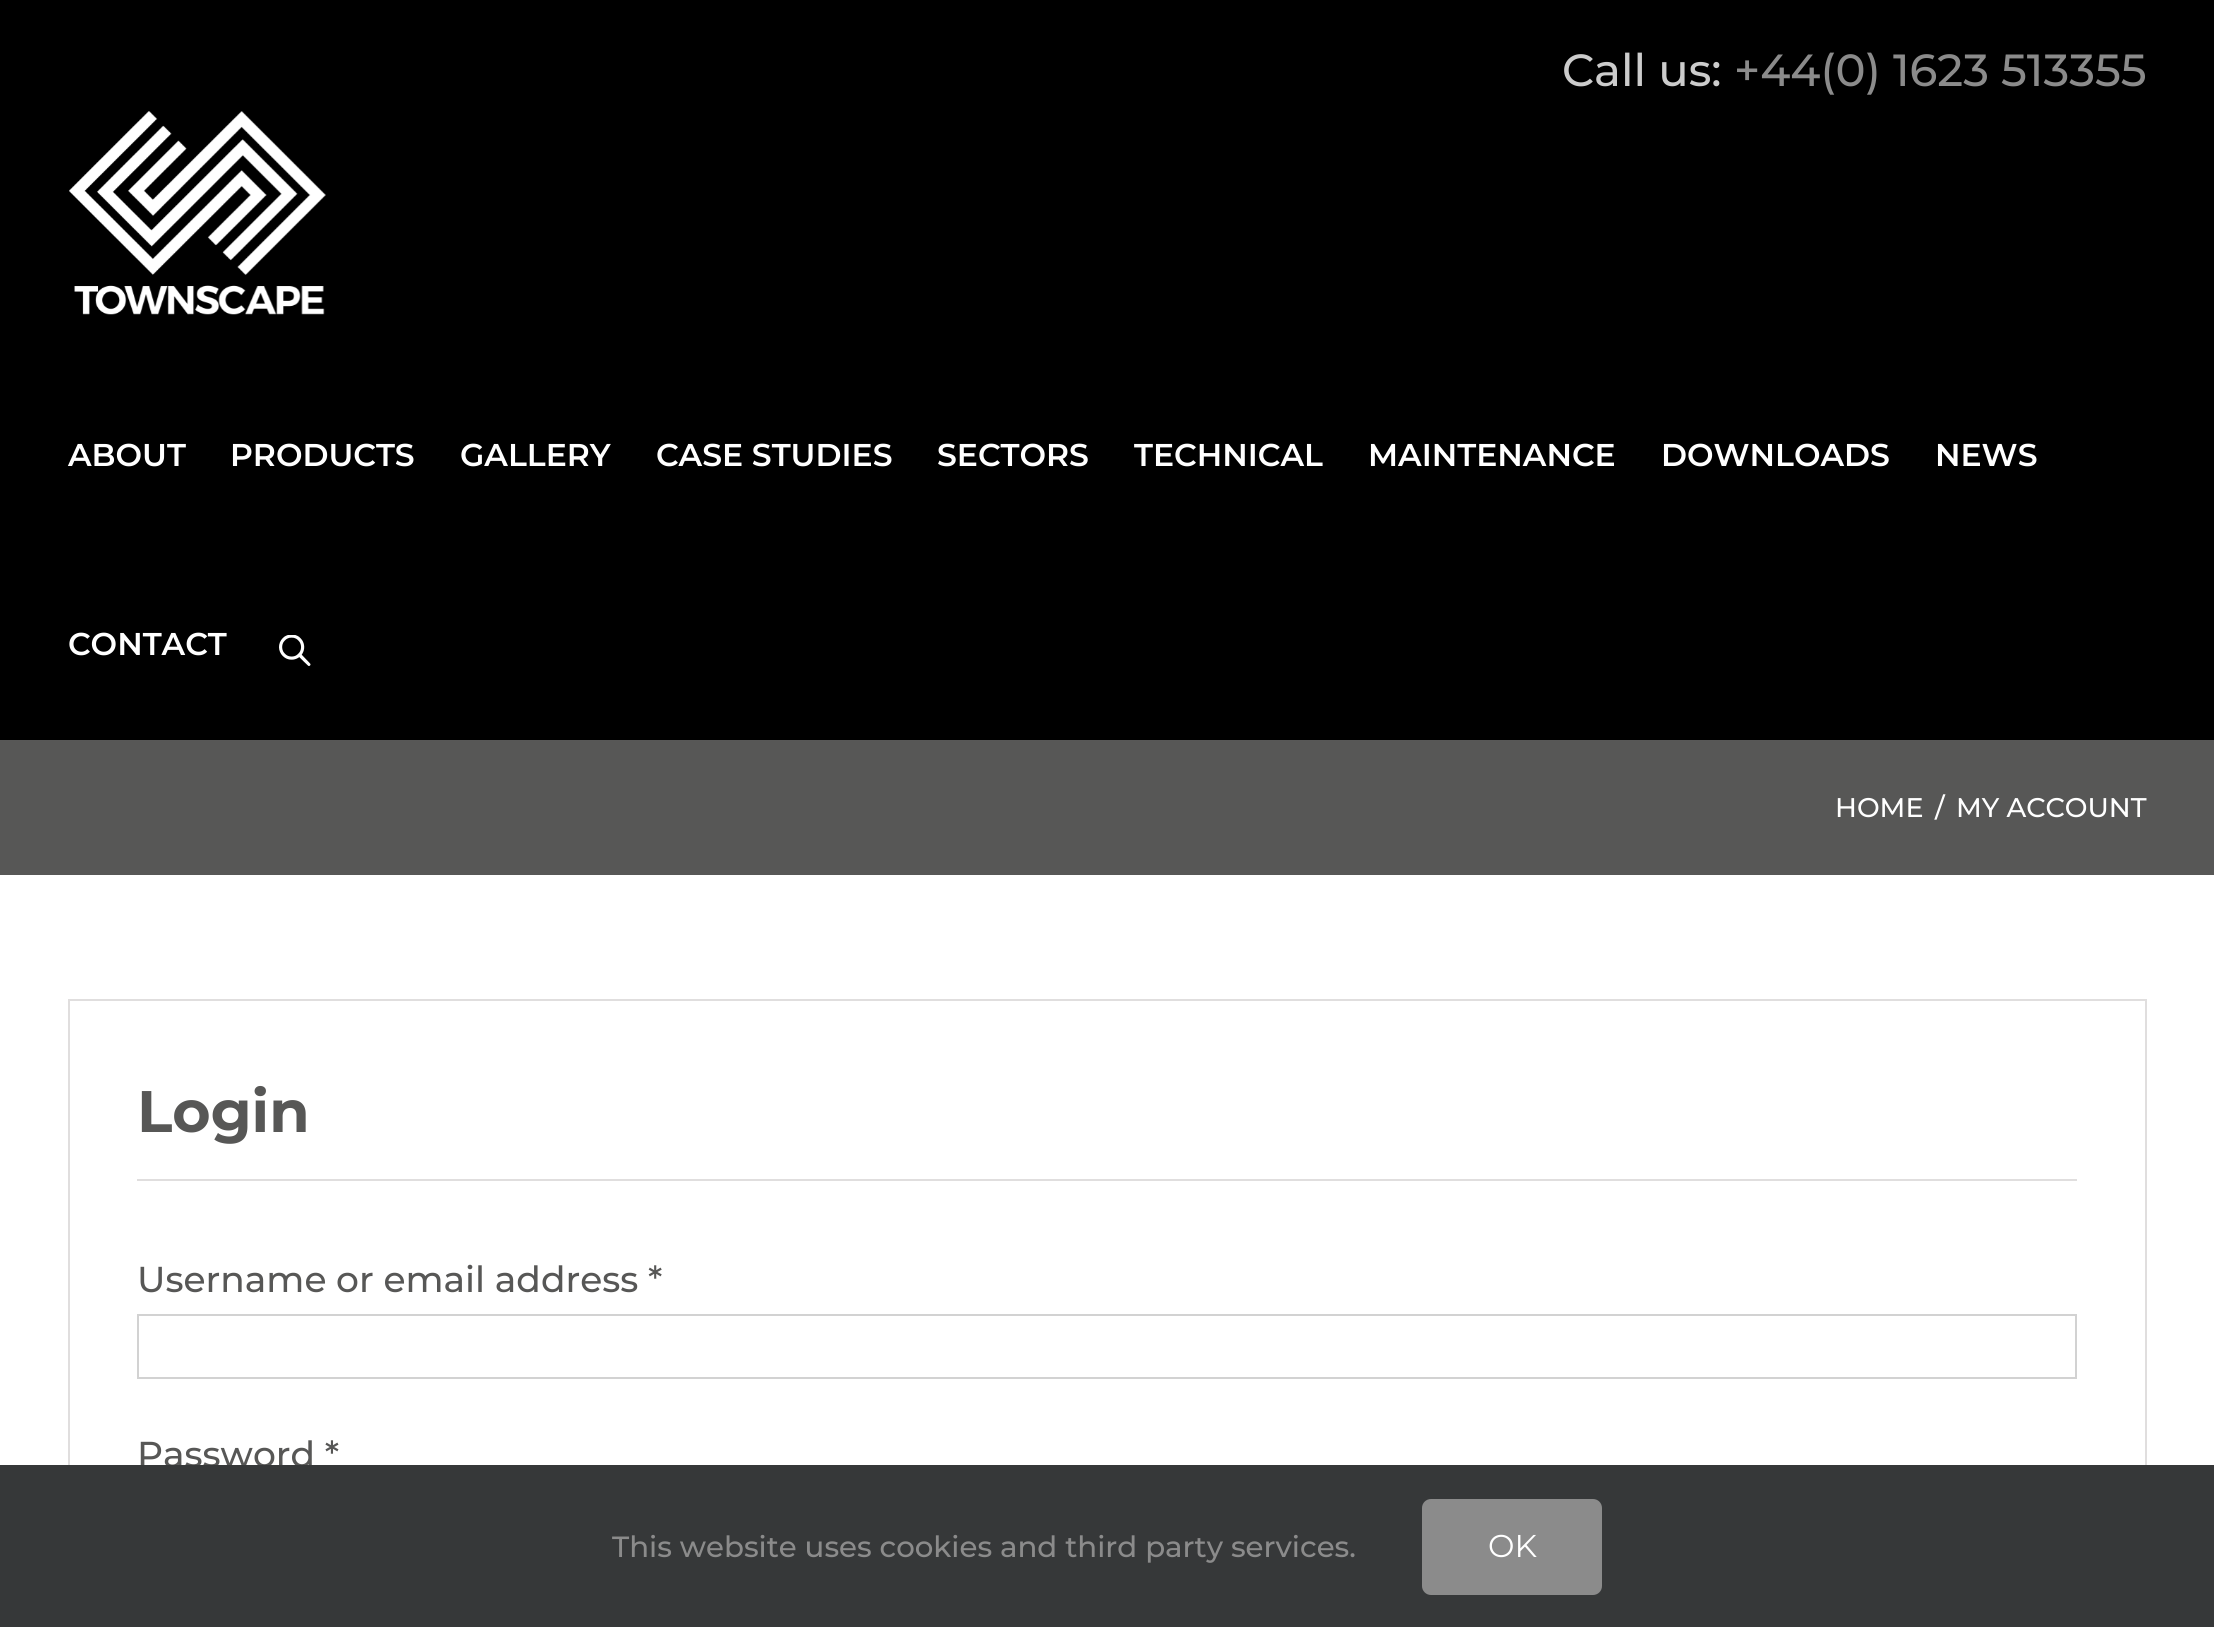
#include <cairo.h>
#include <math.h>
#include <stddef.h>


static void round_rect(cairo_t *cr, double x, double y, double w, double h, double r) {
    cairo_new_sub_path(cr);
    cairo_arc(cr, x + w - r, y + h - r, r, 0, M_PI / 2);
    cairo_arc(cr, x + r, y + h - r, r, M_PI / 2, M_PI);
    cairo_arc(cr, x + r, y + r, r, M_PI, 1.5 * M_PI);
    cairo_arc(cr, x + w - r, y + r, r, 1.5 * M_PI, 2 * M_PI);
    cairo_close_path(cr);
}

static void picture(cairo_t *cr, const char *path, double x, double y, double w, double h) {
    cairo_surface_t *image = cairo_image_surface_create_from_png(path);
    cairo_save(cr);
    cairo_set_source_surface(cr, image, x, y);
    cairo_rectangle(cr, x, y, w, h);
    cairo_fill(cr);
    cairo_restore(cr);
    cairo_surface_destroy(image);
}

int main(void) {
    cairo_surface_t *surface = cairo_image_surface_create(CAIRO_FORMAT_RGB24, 2214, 1627);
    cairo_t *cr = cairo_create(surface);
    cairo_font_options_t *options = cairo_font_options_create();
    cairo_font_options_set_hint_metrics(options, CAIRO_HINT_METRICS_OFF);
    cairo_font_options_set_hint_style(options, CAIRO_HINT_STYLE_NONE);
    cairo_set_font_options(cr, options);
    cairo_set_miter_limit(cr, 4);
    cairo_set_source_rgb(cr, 1, 1, 1);
    cairo_paint(cr);
    cairo_set_source_rgb(cr, 0, 0, 0);
    cairo_rectangle(cr, 0, 0, 2214, 740);
    cairo_fill(cr);
    cairo_select_font_face(cr, "Montserrat Medium", CAIRO_FONT_SLANT_NORMAL, CAIRO_FONT_WEIGHT_NORMAL);
    cairo_set_font_size(cr, 45);
    cairo_set_source_rgb(cr, 0.8, 0.8, 0.8);
    cairo_move_to(cr, 1562, 86);
    cairo_show_text(cr, "Call us:");
    cairo_set_source_rgb(cr, 0.545, 0.545, 0.545);
    cairo_move_to(cr, 1734, 86);
    cairo_show_text(cr, "+44(0) 1623 513355");
    picture(cr, "img1.png", 69, 111, 257, 204);
    cairo_select_font_face(cr, "Montserrat SemiBold", CAIRO_FONT_SLANT_NORMAL, CAIRO_FONT_WEIGHT_NORMAL);
    cairo_set_font_size(cr, 31.5);
    cairo_set_source_rgb(cr, 1, 1, 1);
    cairo_move_to(cr, 68, 466);
    cairo_show_text(cr, "ABOUT");
    cairo_move_to(cr, 230, 466);
    cairo_show_text(cr, "PRODUCTS");
    cairo_move_to(cr, 460, 466);
    cairo_show_text(cr, "GALLERY");
    cairo_move_to(cr, 656, 466);
    cairo_show_text(cr, "CASE STUDIES");
    cairo_move_to(cr, 937, 466);
    cairo_show_text(cr, "SECTORS");
    cairo_move_to(cr, 1134, 466);
    cairo_show_text(cr, "TECHNICAL");
    cairo_move_to(cr, 1368, 466);
    cairo_show_text(cr, "MAINTENANCE");
    cairo_move_to(cr, 1661, 466);
    cairo_show_text(cr, "DOWNLOADS");
    cairo_move_to(cr, 1935, 466);
    cairo_show_text(cr, "NEWS");
    cairo_move_to(cr, 68, 655);
    cairo_show_text(cr, "CONTACT");
    picture(cr, "img2.png", 279, 635, 32, 31);
    cairo_set_source_rgb(cr, 0.341, 0.341, 0.337);
    cairo_rectangle(cr, 0, 740, 2214, 135);
    cairo_fill(cr);
    cairo_select_font_face(cr, "Montserrat Medium", CAIRO_FONT_SLANT_NORMAL, CAIRO_FONT_WEIGHT_NORMAL);
    cairo_set_font_size(cr, 27);
    cairo_set_source_rgb(cr, 1, 1, 1);
    cairo_move_to(cr, 1835, 817);
    cairo_show_text(cr, "HOME");
    cairo_move_to(cr, 1935, 817);
    cairo_show_text(cr, "/");
    cairo_move_to(cr, 1956, 817);
    cairo_show_text(cr, "MY ACCOUNT");
    cairo_rectangle(cr, 69, 1000, 2077, 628);
    cairo_set_source_rgb(cr, 0.878, 0.871, 0.871);
    cairo_stroke(cr);
    cairo_rectangle(cr, 137, 1179, 1940, 2);
    cairo_fill(cr);
    cairo_select_font_face(cr, "Montserrat", CAIRO_FONT_SLANT_NORMAL, CAIRO_FONT_WEIGHT_BOLD);
    cairo_set_font_size(cr, 58.5);
    cairo_set_source_rgb(cr, 0.341, 0.341, 0.337);
    cairo_move_to(cr, 137, 1132);
    cairo_show_text(cr, "Login");
    cairo_select_font_face(cr, "Montserrat Medium", CAIRO_FONT_SLANT_NORMAL, CAIRO_FONT_WEIGHT_NORMAL);
    cairo_set_font_size(cr, 36);
    cairo_move_to(cr, 137, 1292);
    cairo_show_text(cr, "Username or email address *");
    cairo_rectangle(cr, 138, 1315, 1938, 63);
    cairo_set_source_rgb(cr, 0.824, 0.824, 0.824);
    cairo_stroke(cr);
    cairo_set_source_rgb(cr, 0.341, 0.341, 0.337);
    cairo_move_to(cr, 137, 1467);
    cairo_show_text(cr, "Password *");
    cairo_set_source_rgb(cr, 0.212, 0.22, 0.224);
    cairo_rectangle(cr, 0, 1465, 2214, 162);
    cairo_fill(cr);
    cairo_set_font_size(cr, 29.25);
    cairo_set_source_rgb(cr, 0.545, 0.545, 0.545);
    cairo_move_to(cr, 612, 1557);
    cairo_show_text(cr, "This website uses cookies and third party services.");
    round_rect(cr, 1422, 1499, 180, 96, 9);
    cairo_fill(cr);
    cairo_select_font_face(cr, "Montserrat", CAIRO_FONT_SLANT_NORMAL, CAIRO_FONT_WEIGHT_NORMAL);
    cairo_set_font_size(cr, 31.5);
    cairo_set_source_rgb(cr, 1, 1, 1);
    cairo_move_to(cr, 1488, 1557);
    cairo_show_text(cr, "OK");
    cairo_surface_write_to_png(surface, "page.png");
    cairo_font_options_destroy(options);
    cairo_destroy(cr);
    cairo_surface_destroy(surface);
    return 0;
}
